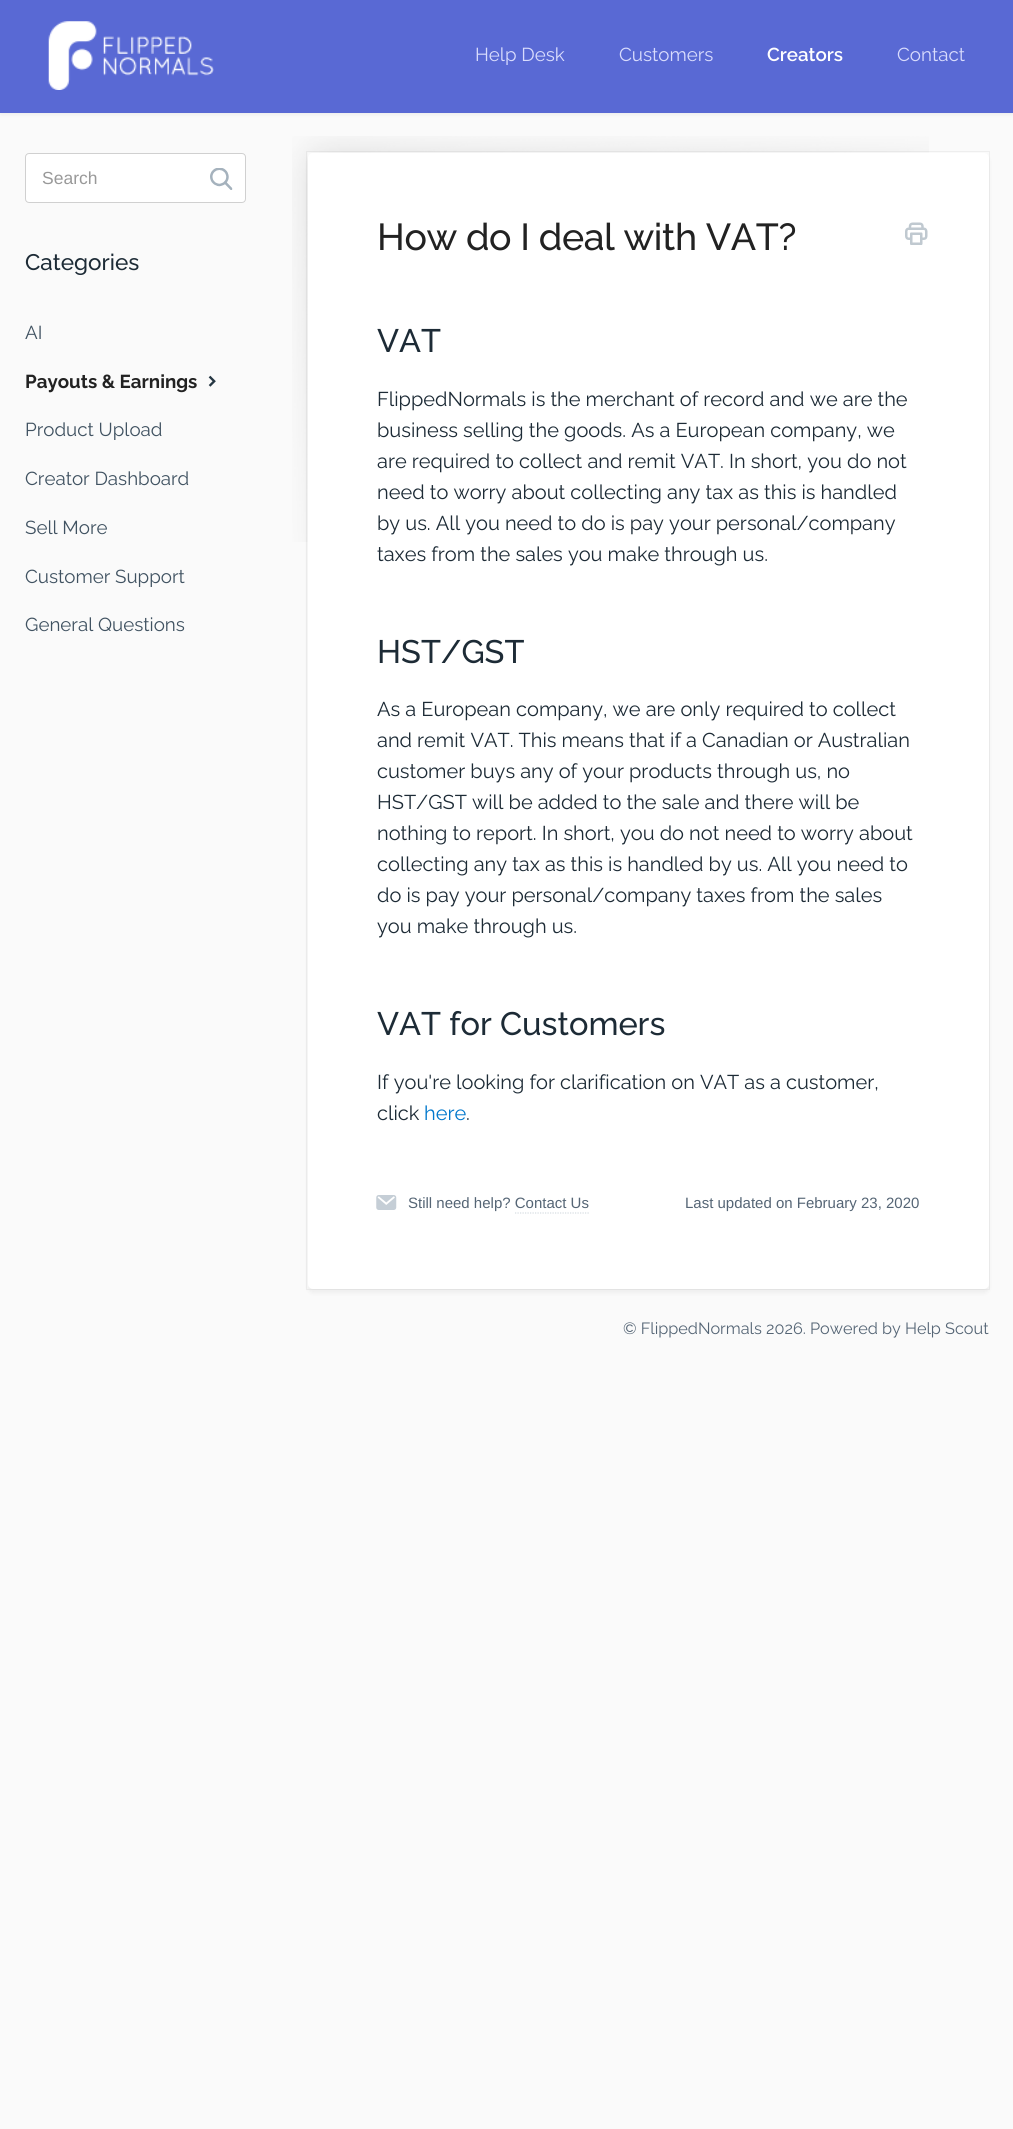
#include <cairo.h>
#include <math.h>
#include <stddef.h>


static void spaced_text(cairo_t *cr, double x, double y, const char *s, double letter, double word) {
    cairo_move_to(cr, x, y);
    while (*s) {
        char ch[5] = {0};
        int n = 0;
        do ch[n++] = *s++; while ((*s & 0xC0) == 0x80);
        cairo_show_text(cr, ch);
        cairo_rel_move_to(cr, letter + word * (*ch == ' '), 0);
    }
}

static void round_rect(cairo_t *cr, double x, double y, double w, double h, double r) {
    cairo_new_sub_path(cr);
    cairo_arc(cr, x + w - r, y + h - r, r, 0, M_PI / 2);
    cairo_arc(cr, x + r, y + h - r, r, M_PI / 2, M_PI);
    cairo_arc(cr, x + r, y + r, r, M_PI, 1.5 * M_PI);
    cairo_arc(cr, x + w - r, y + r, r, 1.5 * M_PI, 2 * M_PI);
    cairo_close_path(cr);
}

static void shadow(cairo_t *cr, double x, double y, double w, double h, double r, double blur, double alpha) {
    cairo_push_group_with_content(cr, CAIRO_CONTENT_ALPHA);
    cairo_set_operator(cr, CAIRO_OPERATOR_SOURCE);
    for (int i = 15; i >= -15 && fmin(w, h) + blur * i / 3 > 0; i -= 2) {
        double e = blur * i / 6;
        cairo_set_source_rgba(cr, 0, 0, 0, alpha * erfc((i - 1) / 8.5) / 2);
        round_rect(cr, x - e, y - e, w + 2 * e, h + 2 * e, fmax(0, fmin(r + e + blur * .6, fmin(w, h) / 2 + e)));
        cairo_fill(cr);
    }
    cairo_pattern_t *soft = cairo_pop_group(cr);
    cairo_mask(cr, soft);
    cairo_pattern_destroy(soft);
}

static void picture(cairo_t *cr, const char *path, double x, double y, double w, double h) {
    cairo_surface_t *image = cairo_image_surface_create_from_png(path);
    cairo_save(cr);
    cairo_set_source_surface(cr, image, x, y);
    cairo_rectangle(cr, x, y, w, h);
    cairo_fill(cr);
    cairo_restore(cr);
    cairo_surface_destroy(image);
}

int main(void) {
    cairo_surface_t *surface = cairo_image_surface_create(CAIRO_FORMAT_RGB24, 1013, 2129);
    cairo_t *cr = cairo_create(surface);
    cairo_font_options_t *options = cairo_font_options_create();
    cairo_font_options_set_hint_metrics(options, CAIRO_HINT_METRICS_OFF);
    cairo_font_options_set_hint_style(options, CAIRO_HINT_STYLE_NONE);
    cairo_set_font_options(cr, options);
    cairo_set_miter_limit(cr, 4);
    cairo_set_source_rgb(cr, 0.98, 0.98, 0.98);
    cairo_paint(cr);
    cairo_set_source_rgb(cr, 0, 0, 0);
    shadow(cr, 0, 1, 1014, 113, 0, 2.5, 0.07);
    cairo_set_source_rgb(cr, 0.349, 0.412, 0.831);
    cairo_rectangle(cr, 0, 0, 1013, 113);
    cairo_fill(cr);
    picture(cr, "img1.png", 48, 21, 166, 69);
    cairo_select_font_face(cr, "Raleway", CAIRO_FONT_SLANT_NORMAL, CAIRO_FONT_WEIGHT_NORMAL);
    cairo_set_font_size(cr, 18.75);
    cairo_set_source_rgb(cr, 0.851, 0.863, 0.992);
    cairo_move_to(cr, 475, 61);
    cairo_show_text(cr, "Help Desk");
    cairo_move_to(cr, 619, 61);
    cairo_show_text(cr, "Customers");
    cairo_select_font_face(cr, "Raleway SemiBold", CAIRO_FONT_SLANT_NORMAL, CAIRO_FONT_WEIGHT_NORMAL);
    cairo_set_source_rgb(cr, 1, 1, 1);
    cairo_move_to(cr, 767, 61);
    cairo_show_text(cr, "Creators");
    cairo_select_font_face(cr, "Raleway", CAIRO_FONT_SLANT_NORMAL, CAIRO_FONT_WEIGHT_NORMAL);
    cairo_set_source_rgb(cr, 0.851, 0.863, 0.992);
    cairo_move_to(cr, 897, 61);
    cairo_show_text(cr, "Contact");
    cairo_set_source_rgb(cr, 1, 1, 1);
    round_rect(cr, 25.5, 153.5, 220, 49, 3.5);
    cairo_fill_preserve(cr);
    cairo_set_source_rgb(cr, 0.816, 0.816, 0.816);
    cairo_set_line_width(cr, 1);
    cairo_stroke(cr);
    cairo_select_font_face(cr, "Liberation Sans", CAIRO_FONT_SLANT_NORMAL, CAIRO_FONT_WEIGHT_NORMAL);
    cairo_set_font_size(cr, 17.5);
    cairo_set_source_rgb(cr, 0.6, 0.6, 0.6);
    cairo_move_to(cr, 42, 184);
    cairo_show_text(cr, "Search");
    picture(cr, "img2.png", 210, 168, 23, 22);
    cairo_select_font_face(cr, "Raleway Medium", CAIRO_FONT_SLANT_NORMAL, CAIRO_FONT_WEIGHT_NORMAL);
    cairo_set_font_size(cr, 22.5);
    cairo_set_source_rgb(cr, 0.114, 0.169, 0.212);
    cairo_move_to(cr, 25, 270);
    cairo_show_text(cr, "Categories");
    cairo_select_font_face(cr, "Raleway", CAIRO_FONT_SLANT_NORMAL, CAIRO_FONT_WEIGHT_NORMAL);
    cairo_set_font_size(cr, 18.75);
    cairo_set_source_rgb(cr, 0.251, 0.322, 0.38);
    cairo_move_to(cr, 25, 339);
    cairo_show_text(cr, "AI");
    cairo_select_font_face(cr, "Raleway", CAIRO_FONT_SLANT_NORMAL, CAIRO_FONT_WEIGHT_BOLD);
    cairo_set_source_rgb(cr, 0.133, 0.133, 0.133);
    cairo_move_to(cr, 25, 388);
    cairo_show_text(cr, "Payouts & Earnings");
    picture(cr, "img3.png", 208, 375, 8, 12);
    cairo_select_font_face(cr, "Raleway", CAIRO_FONT_SLANT_NORMAL, CAIRO_FONT_WEIGHT_NORMAL);
    cairo_set_source_rgb(cr, 0.251, 0.322, 0.38);
    cairo_move_to(cr, 25, 436);
    cairo_show_text(cr, "Product Upload");
    cairo_move_to(cr, 25, 485);
    cairo_show_text(cr, "Creator Dashboard");
    cairo_move_to(cr, 25, 534);
    cairo_show_text(cr, "Sell More");
    cairo_move_to(cr, 25, 583);
    cairo_show_text(cr, "Customer Support");
    cairo_move_to(cr, 25, 631);
    cairo_show_text(cr, "General Questions");
    picture(cr, "img4.png", 292, 136, 637, 406);
    cairo_set_source_rgb(cr, 0, 0, 0);
    shadow(cr, 308, 156, 681, 1137, 5, 2, 0.05);
    cairo_rectangle(cr, 306.5, 151.5, 683, 1138);
    cairo_set_source_rgba(cr, 0, 0, 0, 0.05);
    cairo_stroke(cr);
    cairo_set_source_rgb(cr, 1, 1, 1);
    round_rect(cr, 308, 153, 681, 1136, 5);
    cairo_fill(cr);
    cairo_select_font_face(cr, "Raleway Medium", CAIRO_FONT_SLANT_NORMAL, CAIRO_FONT_WEIGHT_NORMAL);
    cairo_set_font_size(cr, 37.5);
    cairo_set_source_rgb(cr, 0.133, 0.133, 0.133);
    spaced_text(cr, 377, 250, "How do I deal with VAT?", -0.4, 0);
    picture(cr, "img5.png", 905, 222, 23, 23);
    cairo_set_font_size(cr, 32.5);
    cairo_set_source_rgb(cr, 0.114, 0.169, 0.212);
    cairo_move_to(cr, 377, 352);
    cairo_show_text(cr, "VAT");
    cairo_select_font_face(cr, "Raleway", CAIRO_FONT_SLANT_NORMAL, CAIRO_FONT_WEIGHT_NORMAL);
    cairo_set_font_size(cr, 20);
    cairo_move_to(cr, 377, 406);
    cairo_show_text(cr, "FlippedNormals is the merchant of record and we are the");
    cairo_move_to(cr, 377, 437);
    cairo_show_text(cr, "business selling the goods. As a European company, we");
    cairo_move_to(cr, 377, 468);
    cairo_show_text(cr, "are required to collect and remit VAT. In short, you do not");
    cairo_move_to(cr, 377, 499);
    cairo_show_text(cr, "need to worry about collecting any tax as this is handled");
    cairo_move_to(cr, 377, 530);
    cairo_show_text(cr, "by us. All you need to do is pay your personal/company");
    cairo_move_to(cr, 377, 561);
    cairo_show_text(cr, "taxes from the sales you make through us.");
    cairo_select_font_face(cr, "Raleway Medium", CAIRO_FONT_SLANT_NORMAL, CAIRO_FONT_WEIGHT_NORMAL);
    cairo_set_font_size(cr, 32.5);
    cairo_move_to(cr, 377, 663);
    cairo_show_text(cr, "HST/GST");
    cairo_select_font_face(cr, "Raleway", CAIRO_FONT_SLANT_NORMAL, CAIRO_FONT_WEIGHT_NORMAL);
    cairo_set_font_size(cr, 20);
    cairo_move_to(cr, 377, 716);
    cairo_show_text(cr, "As a European company, we are only required to collect");
    cairo_move_to(cr, 377, 747);
    cairo_show_text(cr, "and remit VAT. This means that if a Canadian or Australian");
    cairo_move_to(cr, 377, 778);
    cairo_show_text(cr, "customer buys any of your products through us, no");
    cairo_move_to(cr, 377, 809);
    cairo_show_text(cr, "HST/GST will be added to the sale and there will be");
    cairo_move_to(cr, 377, 840);
    cairo_show_text(cr, "nothing to report. In short, you do not need to worry about");
    cairo_move_to(cr, 377, 871);
    cairo_show_text(cr, "collecting any tax as this is handled by us. All you need to");
    cairo_move_to(cr, 377, 902);
    cairo_show_text(cr, "do is pay your personal/company taxes from the sales");
    cairo_move_to(cr, 377, 933);
    cairo_show_text(cr, "you make through us.");
    cairo_select_font_face(cr, "Raleway Medium", CAIRO_FONT_SLANT_NORMAL, CAIRO_FONT_WEIGHT_NORMAL);
    cairo_set_font_size(cr, 32.5);
    cairo_move_to(cr, 377, 1035);
    cairo_show_text(cr, "VAT for Customers");
    cairo_select_font_face(cr, "Raleway", CAIRO_FONT_SLANT_NORMAL, CAIRO_FONT_WEIGHT_NORMAL);
    cairo_set_font_size(cr, 20);
    cairo_move_to(cr, 377, 1089);
    cairo_show_text(cr, "If you're looking for clarification on VAT as a customer,");
    cairo_move_to(cr, 377, 1120);
    cairo_show_text(cr, "click");
    cairo_set_source_rgb(cr, 0, 0.467, 0.8);
    cairo_move_to(cr, 424, 1120);
    cairo_show_text(cr, "here");
    cairo_set_source_rgb(cr, 0.114, 0.169, 0.212);
    cairo_move_to(cr, 466, 1120);
    cairo_show_text(cr, ".");
    picture(cr, "img6.png", 376, 1195, 21, 15);
    cairo_select_font_face(cr, "Liberation Sans", CAIRO_FONT_SLANT_NORMAL, CAIRO_FONT_WEIGHT_NORMAL);
    cairo_set_font_size(cr, 15);
    cairo_set_source_rgb(cr, 0.333, 0.396, 0.459);
    cairo_move_to(cr, 408, 1208);
    cairo_show_text(cr, "Still need help? Contact Us");
    cairo_new_path(cr);
    cairo_move_to(cr, 515, 1213);
    cairo_line_to(cr, 589, 1213);
    cairo_set_source_rgb(cr, 0.835, 0.863, 0.882);
    cairo_set_line_width(cr, 1.2);
    cairo_set_dash(cr, (double[]){1.25, 1.25}, 2, 0);
    cairo_stroke(cr);
    cairo_set_source_rgb(cr, 0.333, 0.396, 0.459);
    cairo_move_to(cr, 685, 1208);
    cairo_show_text(cr, "Last updated on February 23, 2020");
    cairo_select_font_face(cr, "Raleway", CAIRO_FONT_SLANT_NORMAL, CAIRO_FONT_WEIGHT_NORMAL);
    cairo_set_font_size(cr, 16.25);
    cairo_move_to(cr, 623, 1334);
    cairo_show_text(cr, "© FlippedNormals 2026. Powered by Help Scout");
    cairo_surface_write_to_png(surface, "page.png");
    cairo_font_options_destroy(options);
    cairo_destroy(cr);
    cairo_surface_destroy(surface);
    return 0;
}
